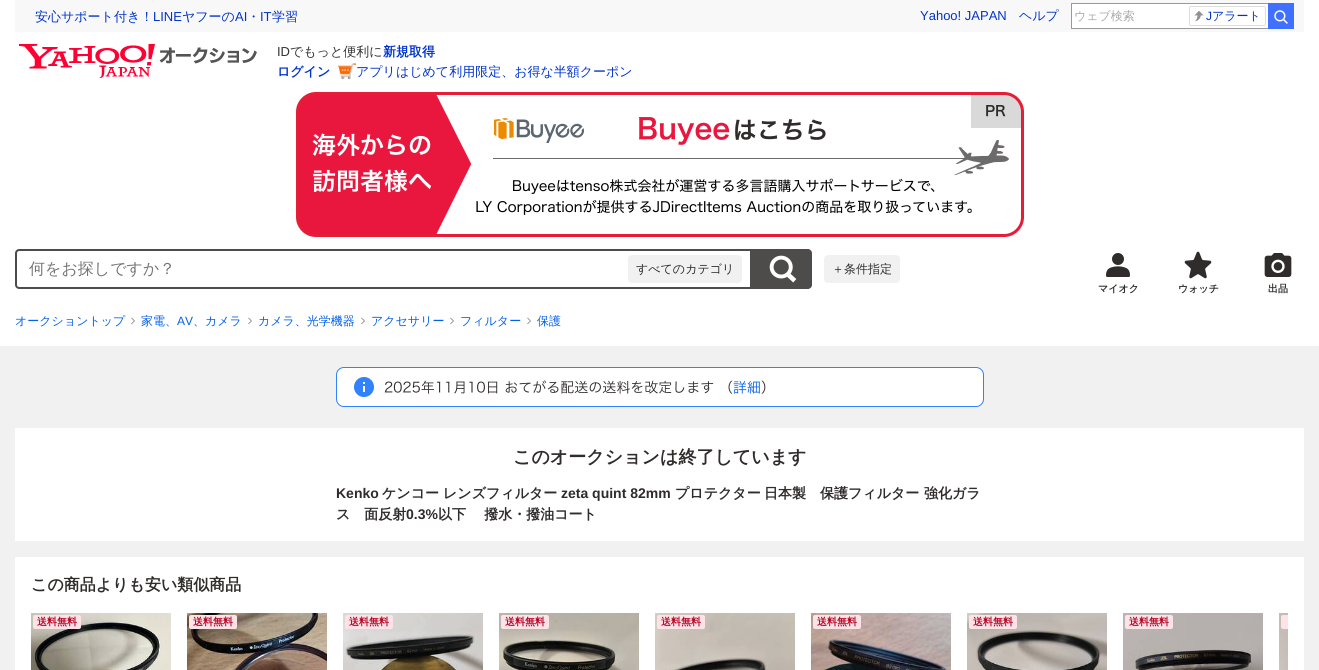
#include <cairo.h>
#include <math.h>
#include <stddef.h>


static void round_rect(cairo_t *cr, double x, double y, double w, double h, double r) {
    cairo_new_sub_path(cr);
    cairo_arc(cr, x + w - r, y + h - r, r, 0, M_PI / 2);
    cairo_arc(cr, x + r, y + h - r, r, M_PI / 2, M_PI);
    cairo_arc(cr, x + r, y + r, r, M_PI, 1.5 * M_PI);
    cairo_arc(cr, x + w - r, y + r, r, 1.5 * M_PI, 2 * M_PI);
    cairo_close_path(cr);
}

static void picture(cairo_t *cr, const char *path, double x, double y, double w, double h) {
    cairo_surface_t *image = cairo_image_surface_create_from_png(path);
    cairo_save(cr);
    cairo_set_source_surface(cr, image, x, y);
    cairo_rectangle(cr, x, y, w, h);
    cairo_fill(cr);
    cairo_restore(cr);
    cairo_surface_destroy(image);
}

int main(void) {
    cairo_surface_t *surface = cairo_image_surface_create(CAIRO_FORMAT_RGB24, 1319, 670);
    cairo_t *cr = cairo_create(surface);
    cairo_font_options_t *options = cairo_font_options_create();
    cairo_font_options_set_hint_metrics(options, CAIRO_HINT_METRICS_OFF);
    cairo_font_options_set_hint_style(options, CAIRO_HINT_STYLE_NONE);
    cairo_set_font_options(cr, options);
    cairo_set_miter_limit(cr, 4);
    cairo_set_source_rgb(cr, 1, 1, 1);
    cairo_paint(cr);
    cairo_set_source_rgb(cr, 0.969, 0.969, 0.973);
    cairo_rectangle(cr, 15, 0, 1289, 32);
    cairo_fill(cr);
    cairo_select_font_face(cr, "WenQuanYi Zen Hei Medium", CAIRO_FONT_SLANT_NORMAL, CAIRO_FONT_WEIGHT_NORMAL);
    cairo_set_font_size(cr, 13);
    cairo_set_source_rgb(cr, 0, 0.2, 0.8);
    cairo_move_to(cr, 35, 21);
    cairo_show_text(cr, "安心サポート付き！");
    cairo_select_font_face(cr, "Liberation Sans", CAIRO_FONT_SLANT_NORMAL, CAIRO_FONT_WEIGHT_NORMAL);
    cairo_move_to(cr, 153, 21);
    cairo_show_text(cr, "LINE");
    cairo_select_font_face(cr, "WenQuanYi Zen Hei Medium", CAIRO_FONT_SLANT_NORMAL, CAIRO_FONT_WEIGHT_NORMAL);
    cairo_move_to(cr, 182, 21);
    cairo_show_text(cr, "ヤフーの");
    cairo_select_font_face(cr, "Liberation Sans", CAIRO_FONT_SLANT_NORMAL, CAIRO_FONT_WEIGHT_NORMAL);
    cairo_move_to(cr, 235, 21);
    cairo_show_text(cr, "AI");
    cairo_select_font_face(cr, "WenQuanYi Zen Hei Medium", CAIRO_FONT_SLANT_NORMAL, CAIRO_FONT_WEIGHT_NORMAL);
    cairo_move_to(cr, 247, 21);
    cairo_show_text(cr, "・");
    cairo_select_font_face(cr, "Liberation Sans", CAIRO_FONT_SLANT_NORMAL, CAIRO_FONT_WEIGHT_NORMAL);
    cairo_move_to(cr, 260, 21);
    cairo_show_text(cr, "IT");
    cairo_select_font_face(cr, "WenQuanYi Zen Hei Medium", CAIRO_FONT_SLANT_NORMAL, CAIRO_FONT_WEIGHT_NORMAL);
    cairo_move_to(cr, 272, 21);
    cairo_show_text(cr, "学習");
    cairo_select_font_face(cr, "Liberation Sans", CAIRO_FONT_SLANT_NORMAL, CAIRO_FONT_WEIGHT_NORMAL);
    cairo_move_to(cr, 920, 20);
    cairo_show_text(cr, "Yahoo! JAPAN");
    cairo_select_font_face(cr, "WenQuanYi Zen Hei Medium", CAIRO_FONT_SLANT_NORMAL, CAIRO_FONT_WEIGHT_NORMAL);
    cairo_move_to(cr, 1019, 20);
    cairo_show_text(cr, "ヘルプ");
    cairo_set_source_rgb(cr, 1, 1, 1);
    cairo_rectangle(cr, 1072, 4, 196, 24);
    cairo_fill(cr);
    cairo_set_source_rgb(cr, 0.6, 0.6, 0.6);
    cairo_rectangle(cr, 1071, 3, 197, 1);
    cairo_fill(cr);
    cairo_rectangle(cr, 1071, 28, 197, 1);
    cairo_fill(cr);
    cairo_rectangle(cr, 1071, 3, 1, 26);
    cairo_fill(cr);
    cairo_set_font_size(cr, 12);
    cairo_set_source_rgb(cr, 0.663, 0.663, 0.663);
    cairo_move_to(cr, 1074, 20);
    cairo_show_text(cr, "ウェブ検索");
    round_rect(cr, 1189.5, 6.5, 76, 19, 1.5);
    cairo_set_source_rgb(cr, 0.867, 0.867, 0.867);
    cairo_set_line_width(cr, 1);
    cairo_stroke(cr);
    picture(cr, "img1.png", 1194, 11, 10, 11);
    cairo_select_font_face(cr, "Liberation Sans", CAIRO_FONT_SLANT_NORMAL, CAIRO_FONT_WEIGHT_NORMAL);
    cairo_set_source_rgb(cr, 0, 0.2, 0.8);
    cairo_move_to(cr, 1206, 20);
    cairo_show_text(cr, "J");
    cairo_select_font_face(cr, "WenQuanYi Zen Hei Medium", CAIRO_FONT_SLANT_NORMAL, CAIRO_FONT_WEIGHT_NORMAL);
    cairo_move_to(cr, 1212, 20);
    cairo_show_text(cr, "アラート");
    cairo_set_source_rgb(cr, 0.251, 0.439, 1);
    cairo_rectangle(cr, 1268, 3, 26, 26);
    cairo_fill(cr);
    picture(cr, "img2.png", 1274, 10, 14, 14);
    picture(cr, "img3.png", 19, 44, 238, 34);
    cairo_select_font_face(cr, "Liberation Sans", CAIRO_FONT_SLANT_NORMAL, CAIRO_FONT_WEIGHT_NORMAL);
    cairo_set_font_size(cr, 13);
    cairo_set_source_rgb(cr, 0.2, 0.2, 0.2);
    cairo_move_to(cr, 277, 56);
    cairo_show_text(cr, "ID");
    cairo_select_font_face(cr, "WenQuanYi Zen Hei Medium", CAIRO_FONT_SLANT_NORMAL, CAIRO_FONT_WEIGHT_NORMAL);
    cairo_move_to(cr, 290, 56);
    cairo_show_text(cr, "でもっと便利に");
    cairo_select_font_face(cr, "WenQuanYi Zen Hei", CAIRO_FONT_SLANT_NORMAL, CAIRO_FONT_WEIGHT_BOLD);
    cairo_set_source_rgb(cr, 0, 0.2, 0.8);
    cairo_move_to(cr, 383, 56);
    cairo_show_text(cr, "新規取得");
    cairo_move_to(cr, 277, 76);
    cairo_show_text(cr, "ログイン");
    picture(cr, "img4.png", 338, 63, 18, 17);
    cairo_select_font_face(cr, "WenQuanYi Zen Hei Medium", CAIRO_FONT_SLANT_NORMAL, CAIRO_FONT_WEIGHT_NORMAL);
    cairo_move_to(cr, 356, 76);
    cairo_show_text(cr, "アプリはじめて利用限定、お得な半額クーポン");
    picture(cr, "img5.png", 296, 92, 728, 145);
    cairo_new_path(cr);
    cairo_move_to(cr, 19, 250);
    cairo_line_to(cr, 751, 250);
    cairo_line_to(cr, 751, 288);
    cairo_line_to(cr, 19, 288);
    cairo_curve_to(cr, 17.5, 288, 16, 286.5, 16, 285);
    cairo_line_to(cr, 16, 253);
    cairo_curve_to(cr, 16, 251.5, 17.5, 250, 19, 250);
    cairo_close_path(cr);
    cairo_set_source_rgb(cr, 0.302, 0.298, 0.29);
    cairo_set_line_width(cr, 2);
    cairo_stroke(cr);
    cairo_set_font_size(cr, 16);
    cairo_set_source_rgb(cr, 0.459, 0.459, 0.459);
    cairo_move_to(cr, 29, 274);
    cairo_show_text(cr, "何をお探しですか？");
    cairo_set_source_rgb(cr, 0.945, 0.945, 0.945);
    round_rect(cr, 628, 255, 114, 28, 4);
    cairo_fill(cr);
    cairo_set_font_size(cr, 12);
    cairo_set_source_rgb(cr, 0.184, 0.173, 0.169);
    cairo_move_to(cr, 636, 273);
    cairo_show_text(cr, "すべてのカテゴリ");
    cairo_set_source_rgb(cr, 0.302, 0.298, 0.29);
    cairo_new_path(cr);
    cairo_move_to(cr, 752, 249);
    cairo_line_to(cr, 808, 249);
    cairo_curve_to(cr, 810, 249, 812, 251, 812, 253);
    cairo_line_to(cr, 812, 285);
    cairo_curve_to(cr, 812, 287, 810, 289, 808, 289);
    cairo_line_to(cr, 752, 289);
    cairo_close_path(cr);
    cairo_fill(cr);
    picture(cr, "img6.png", 769, 255, 28, 28);
    cairo_set_source_rgb(cr, 0.945, 0.945, 0.945);
    round_rect(cr, 824, 255, 76, 28, 4);
    cairo_fill(cr);
    cairo_set_source_rgb(cr, 0.184, 0.173, 0.169);
    cairo_move_to(cr, 832, 273);
    cairo_show_text(cr, "＋条件指定");
    picture(cr, "img7.png", 1106, 253, 24, 24);
    cairo_select_font_face(cr, "WenQuanYi Zen Hei", CAIRO_FONT_SLANT_NORMAL, CAIRO_FONT_WEIGHT_BOLD);
    cairo_set_font_size(cr, 10);
    cairo_move_to(cr, 1098, 292);
    cairo_show_text(cr, "マイオク");
    picture(cr, "img8.png", 1184, 251, 28, 28);
    cairo_move_to(cr, 1178, 292);
    cairo_show_text(cr, "ウォッチ");
    picture(cr, "img9.png", 1264, 253, 28, 24);
    cairo_move_to(cr, 1268, 292);
    cairo_show_text(cr, "出品");
    cairo_select_font_face(cr, "WenQuanYi Zen Hei Medium", CAIRO_FONT_SLANT_NORMAL, CAIRO_FONT_WEIGHT_NORMAL);
    cairo_set_font_size(cr, 12);
    cairo_set_source_rgb(cr, 0.008, 0.376, 0.918);
    cairo_move_to(cr, 15, 325);
    cairo_show_text(cr, "オークショントップ");
    picture(cr, "img10.png", 131, 317, 4, 8);
    cairo_move_to(cr, 141, 325);
    cairo_show_text(cr, "家電、");
    cairo_select_font_face(cr, "Liberation Sans", CAIRO_FONT_SLANT_NORMAL, CAIRO_FONT_WEIGHT_NORMAL);
    cairo_move_to(cr, 177, 325);
    cairo_show_text(cr, "AV");
    cairo_select_font_face(cr, "WenQuanYi Zen Hei Medium", CAIRO_FONT_SLANT_NORMAL, CAIRO_FONT_WEIGHT_NORMAL);
    cairo_move_to(cr, 193, 325);
    cairo_show_text(cr, "、カメラ");
    picture(cr, "img10.png", 248, 317, 4, 8);
    cairo_move_to(cr, 258, 325);
    cairo_show_text(cr, "カメラ、光学機器");
    picture(cr, "img10.png", 361, 317, 4, 8);
    cairo_move_to(cr, 371, 325);
    cairo_show_text(cr, "アクセサリー");
    picture(cr, "img10.png", 450, 317, 4, 8);
    cairo_move_to(cr, 460, 325);
    cairo_show_text(cr, "フィルター");
    picture(cr, "img10.png", 527, 317, 4, 8);
    cairo_move_to(cr, 537, 325);
    cairo_show_text(cr, "保護");
    cairo_set_source_rgb(cr, 0.945, 0.945, 0.945);
    cairo_rectangle(cr, 0, 346, 1319, 324);
    cairo_fill(cr);
    picture(cr, "img11.png", 336, 367, 648, 40);
    cairo_set_source_rgb(cr, 1, 1, 1);
    cairo_rectangle(cr, 15, 428, 1289, 113);
    cairo_fill(cr);
    cairo_select_font_face(cr, "WenQuanYi Zen Hei", CAIRO_FONT_SLANT_NORMAL, CAIRO_FONT_WEIGHT_BOLD);
    cairo_set_font_size(cr, 18);
    cairo_set_source_rgb(cr, 0.184, 0.173, 0.169);
    cairo_move_to(cr, 513, 463);
    cairo_show_text(cr, "このオークションは終了しています");
    cairo_select_font_face(cr, "Liberation Sans", CAIRO_FONT_SLANT_NORMAL, CAIRO_FONT_WEIGHT_BOLD);
    cairo_set_font_size(cr, 14);
    cairo_move_to(cr, 336, 498);
    cairo_show_text(cr, "Kenko");
    cairo_select_font_face(cr, "WenQuanYi Zen Hei", CAIRO_FONT_SLANT_NORMAL, CAIRO_FONT_WEIGHT_BOLD);
    cairo_move_to(cr, 382, 498);
    cairo_show_text(cr, "ケンコー");
    cairo_move_to(cr, 443, 498);
    cairo_show_text(cr, "レンズフィルター");
    cairo_select_font_face(cr, "Liberation Sans", CAIRO_FONT_SLANT_NORMAL, CAIRO_FONT_WEIGHT_BOLD);
    cairo_move_to(cr, 561, 498);
    cairo_show_text(cr, "zeta quint 82mm");
    cairo_select_font_face(cr, "WenQuanYi Zen Hei", CAIRO_FONT_SLANT_NORMAL, CAIRO_FONT_WEIGHT_BOLD);
    cairo_move_to(cr, 675, 498);
    cairo_show_text(cr, "プロテクター");
    cairo_move_to(cr, 764, 498);
    cairo_show_text(cr, "日本製　保護フィルター");
    cairo_move_to(cr, 924, 498);
    cairo_show_text(cr, "強化ガラ");
    cairo_move_to(cr, 336, 519);
    cairo_show_text(cr, "ス　面反射");
    cairo_select_font_face(cr, "Liberation Sans", CAIRO_FONT_SLANT_NORMAL, CAIRO_FONT_WEIGHT_BOLD);
    cairo_move_to(cr, 406, 519);
    cairo_show_text(cr, "0.3%");
    cairo_select_font_face(cr, "WenQuanYi Zen Hei", CAIRO_FONT_SLANT_NORMAL, CAIRO_FONT_WEIGHT_BOLD);
    cairo_move_to(cr, 438, 519);
    cairo_show_text(cr, "以下　 撥水・撥油コート");
    cairo_set_source_rgb(cr, 1, 1, 1);
    cairo_rectangle(cr, 15, 557, 1289, 113);
    cairo_fill(cr);
    cairo_set_font_size(cr, 16);
    cairo_set_source_rgb(cr, 0.184, 0.173, 0.169);
    cairo_move_to(cr, 31, 590);
    cairo_show_text(cr, "この商品よりも安い類似商品");
    picture(cr, "img12.png", 31, 613, 140, 57);
    cairo_set_source_rgb(cr, 0.992, 0.89, 0.91);
    round_rect(cr, 33, 615, 48, 14, 2);
    cairo_fill(cr);
    cairo_set_font_size(cr, 10);
    cairo_set_source_rgb(cr, 0.71, 0, 0.129);
    cairo_move_to(cr, 37, 625);
    cairo_show_text(cr, "送料無料");
    picture(cr, "img13.png", 187, 613, 140, 57);
    cairo_set_source_rgb(cr, 0.992, 0.89, 0.91);
    round_rect(cr, 189, 615, 48, 14, 2);
    cairo_fill(cr);
    cairo_set_source_rgb(cr, 0.71, 0, 0.129);
    cairo_move_to(cr, 193, 625);
    cairo_show_text(cr, "送料無料");
    picture(cr, "img14.png", 343, 613, 140, 57);
    cairo_set_source_rgb(cr, 0.992, 0.89, 0.91);
    round_rect(cr, 345, 615, 48, 14, 2);
    cairo_fill(cr);
    cairo_set_source_rgb(cr, 0.71, 0, 0.129);
    cairo_move_to(cr, 349, 625);
    cairo_show_text(cr, "送料無料");
    picture(cr, "img15.png", 499, 613, 140, 57);
    cairo_set_source_rgb(cr, 0.992, 0.89, 0.91);
    round_rect(cr, 501, 615, 48, 14, 2);
    cairo_fill(cr);
    cairo_set_source_rgb(cr, 0.71, 0, 0.129);
    cairo_move_to(cr, 505, 625);
    cairo_show_text(cr, "送料無料");
    picture(cr, "img16.png", 655, 613, 140, 57);
    cairo_set_source_rgb(cr, 0.992, 0.89, 0.91);
    round_rect(cr, 657, 615, 48, 14, 2);
    cairo_fill(cr);
    cairo_set_source_rgb(cr, 0.71, 0, 0.129);
    cairo_move_to(cr, 661, 625);
    cairo_show_text(cr, "送料無料");
    picture(cr, "img17.png", 811, 613, 140, 57);
    cairo_set_source_rgb(cr, 0.992, 0.89, 0.91);
    round_rect(cr, 813, 615, 48, 14, 2);
    cairo_fill(cr);
    cairo_set_source_rgb(cr, 0.71, 0, 0.129);
    cairo_move_to(cr, 817, 625);
    cairo_show_text(cr, "送料無料");
    picture(cr, "img18.png", 967, 613, 140, 57);
    cairo_set_source_rgb(cr, 0.992, 0.89, 0.91);
    round_rect(cr, 969, 615, 48, 14, 2);
    cairo_fill(cr);
    cairo_set_source_rgb(cr, 0.71, 0, 0.129);
    cairo_move_to(cr, 973, 625);
    cairo_show_text(cr, "送料無料");
    picture(cr, "img19.png", 1123, 613, 140, 57);
    cairo_set_source_rgb(cr, 0.992, 0.89, 0.91);
    round_rect(cr, 1125, 615, 48, 14, 2);
    cairo_fill(cr);
    cairo_set_source_rgb(cr, 0.71, 0, 0.129);
    cairo_move_to(cr, 1129, 625);
    cairo_show_text(cr, "送料無料");
    picture(cr, "img20.png", 1279, 613, 9, 57);
    cairo_set_source_rgb(cr, 0.992, 0.89, 0.91);
    cairo_new_path(cr);
    cairo_move_to(cr, 1283, 615);
    cairo_line_to(cr, 1288, 615);
    cairo_line_to(cr, 1288, 629);
    cairo_line_to(cr, 1283, 629);
    cairo_curve_to(cr, 1282, 629, 1281, 628, 1281, 627);
    cairo_line_to(cr, 1281, 617);
    cairo_curve_to(cr, 1281, 616, 1282, 615, 1283, 615);
    cairo_close_path(cr);
    cairo_fill(cr);
    cairo_surface_write_to_png(surface, "page.png");
    cairo_font_options_destroy(options);
    cairo_destroy(cr);
    cairo_surface_destroy(surface);
    return 0;
}
